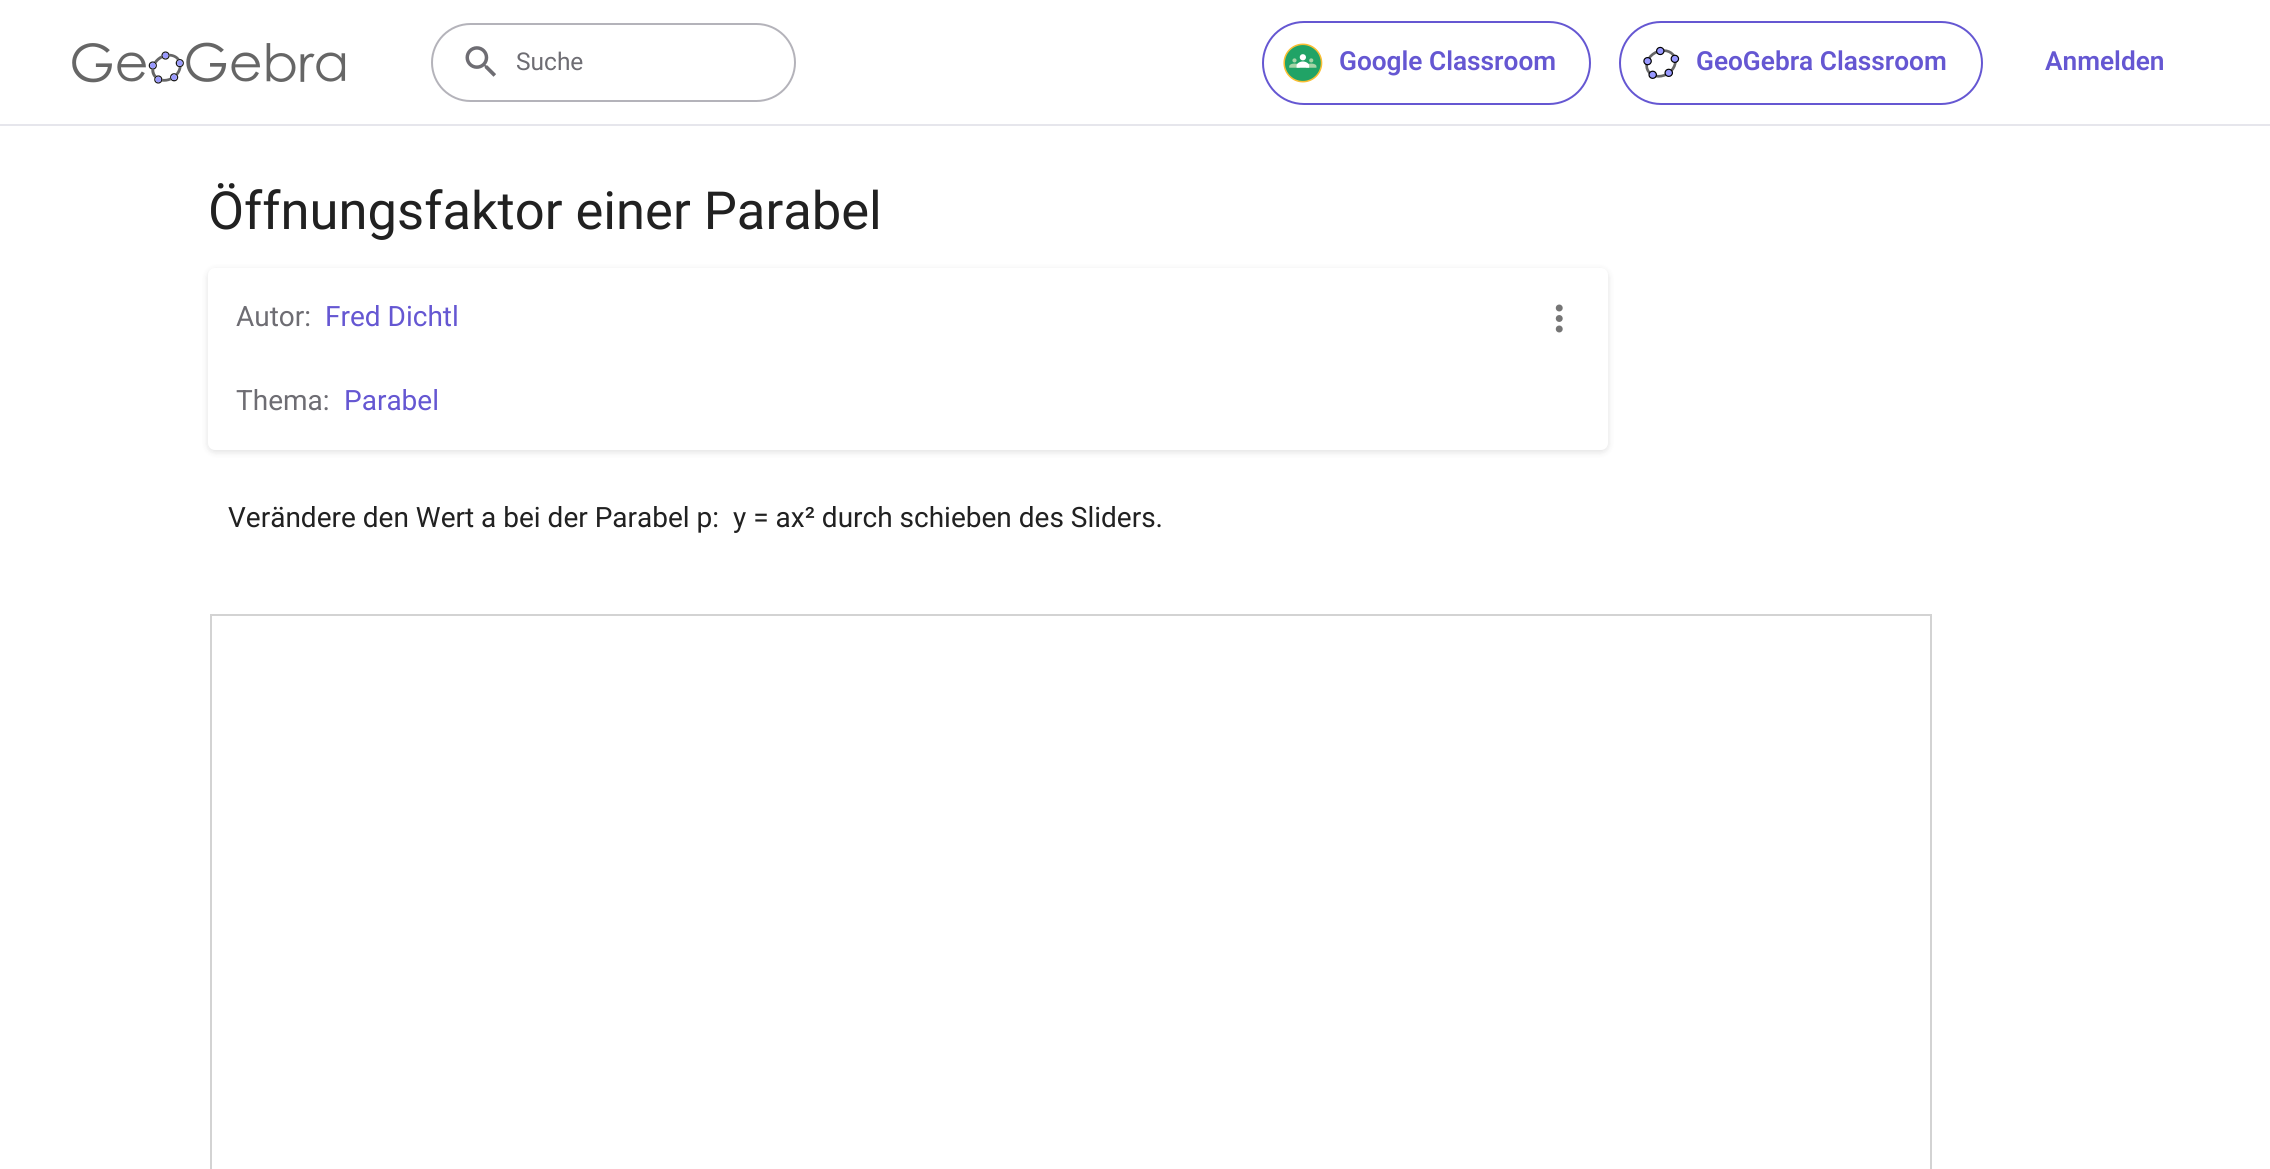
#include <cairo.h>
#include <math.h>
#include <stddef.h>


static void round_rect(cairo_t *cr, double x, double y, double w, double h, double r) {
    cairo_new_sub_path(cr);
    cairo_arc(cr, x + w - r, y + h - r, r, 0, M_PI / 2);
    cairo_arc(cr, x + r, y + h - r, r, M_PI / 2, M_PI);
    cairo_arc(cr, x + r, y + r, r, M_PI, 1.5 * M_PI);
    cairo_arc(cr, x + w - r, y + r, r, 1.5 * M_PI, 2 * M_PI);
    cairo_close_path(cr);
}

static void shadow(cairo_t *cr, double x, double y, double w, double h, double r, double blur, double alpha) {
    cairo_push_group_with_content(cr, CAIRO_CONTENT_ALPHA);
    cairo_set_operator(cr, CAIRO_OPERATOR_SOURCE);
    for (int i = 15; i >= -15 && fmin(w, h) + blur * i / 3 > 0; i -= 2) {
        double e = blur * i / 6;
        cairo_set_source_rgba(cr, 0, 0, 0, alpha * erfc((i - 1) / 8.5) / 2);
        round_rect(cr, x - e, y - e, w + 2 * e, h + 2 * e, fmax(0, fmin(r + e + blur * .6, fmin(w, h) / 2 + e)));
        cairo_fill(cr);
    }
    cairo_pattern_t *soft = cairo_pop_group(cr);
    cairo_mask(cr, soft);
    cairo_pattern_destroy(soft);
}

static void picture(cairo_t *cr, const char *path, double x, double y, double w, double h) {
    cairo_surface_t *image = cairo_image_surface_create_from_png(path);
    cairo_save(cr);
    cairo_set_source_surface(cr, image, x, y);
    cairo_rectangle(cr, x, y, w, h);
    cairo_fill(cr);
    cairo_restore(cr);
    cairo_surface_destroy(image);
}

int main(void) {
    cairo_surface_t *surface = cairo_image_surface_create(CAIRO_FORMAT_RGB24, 2270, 1169);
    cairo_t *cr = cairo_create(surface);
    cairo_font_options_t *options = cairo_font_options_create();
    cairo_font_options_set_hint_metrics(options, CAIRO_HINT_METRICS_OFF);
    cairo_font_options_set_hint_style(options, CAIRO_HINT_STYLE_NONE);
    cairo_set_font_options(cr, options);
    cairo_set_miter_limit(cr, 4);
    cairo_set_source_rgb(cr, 1, 1, 1);
    cairo_paint(cr);
    cairo_set_source_rgb(cr, 0.902, 0.902, 0.922);
    cairo_rectangle(cr, 0, 124, 2270, 2);
    cairo_fill(cr);
    picture(cr, "img1.png", 72, 42, 274, 42);
    round_rect(cr, 432, 24, 363, 77, 38.5);
    cairo_set_source_rgb(cr, 0.706, 0.702, 0.729);
    cairo_stroke(cr);
    picture(cr, "img2.png", 465, 46, 31, 31);
    cairo_select_font_face(cr, "Roboto", CAIRO_FONT_SLANT_NORMAL, CAIRO_FONT_WEIGHT_NORMAL);
    cairo_set_font_size(cr, 24.5);
    cairo_set_source_rgb(cr, 0.431, 0.427, 0.451);
    cairo_move_to(cr, 516, 70);
    cairo_show_text(cr, "Suche");
    round_rect(cr, 1263, 22, 327, 82, 41);
    cairo_set_source_rgb(cr, 0.396, 0.341, 0.824);
    cairo_stroke(cr);
    picture(cr, "img3.png", 1283, 43, 40, 40);
    cairo_select_font_face(cr, "Roboto SemiBold", CAIRO_FONT_SLANT_NORMAL, CAIRO_FONT_WEIGHT_NORMAL);
    cairo_set_font_size(cr, 26.25);
    cairo_move_to(cr, 1339, 70);
    cairo_show_text(cr, "Google Classroom");
    round_rect(cr, 1620, 22, 362, 82, 41);
    cairo_stroke(cr);
    picture(cr, "img4.png", 1643, 46, 37, 33);
    cairo_move_to(cr, 1696, 70);
    cairo_show_text(cr, "GeoGebra Classroom");
    cairo_move_to(cr, 2045, 70);
    cairo_show_text(cr, "Anmelden");
    cairo_select_font_face(cr, "Roboto", CAIRO_FONT_SLANT_NORMAL, CAIRO_FONT_WEIGHT_NORMAL);
    cairo_set_font_size(cr, 52.5);
    cairo_set_source_rgb(cr, 0.129, 0.129, 0.129);
    cairo_move_to(cr, 208, 229);
    cairo_show_text(cr, "Öffnungsfaktor einer Parabel");
    cairo_set_source_rgb(cr, 0.11, 0.11, 0.122);
    shadow(cr, 208, 270, 1400, 182, 7, 3.5, 0.14);
    cairo_set_source_rgb(cr, 1, 1, 1);
    round_rect(cr, 208, 268, 1400, 182, 7);
    cairo_fill(cr);
    cairo_set_font_size(cr, 28);
    cairo_set_source_rgb(cr, 0.431, 0.427, 0.451);
    cairo_move_to(cr, 236, 326);
    cairo_show_text(cr, "Autor:");
    cairo_set_source_rgb(cr, 0.396, 0.341, 0.824);
    cairo_move_to(cr, 325, 326);
    cairo_show_text(cr, "Fred Dichtl");
    cairo_set_source_rgb(cr, 0.431, 0.427, 0.451);
    cairo_move_to(cr, 236, 410);
    cairo_show_text(cr, "Thema:");
    cairo_set_source_rgb(cr, 0.396, 0.341, 0.824);
    cairo_move_to(cr, 344, 410);
    cairo_show_text(cr, "Parabel");
    picture(cr, "img5.png", 1555, 304, 8, 29);
    cairo_set_source_rgb(cr, 0.129, 0.129, 0.129);
    cairo_move_to(cr, 228, 527);
    cairo_show_text(cr, "Verändere den Wert a bei der Parabel p:  y = ax² durch schieben des Sliders.");
    cairo_rectangle(cr, 211, 615, 1720, 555);
    cairo_set_source_rgb(cr, 0.827, 0.827, 0.827);
    cairo_stroke(cr);
    cairo_surface_write_to_png(surface, "page.png");
    cairo_font_options_destroy(options);
    cairo_destroy(cr);
    cairo_surface_destroy(surface);
    return 0;
}
